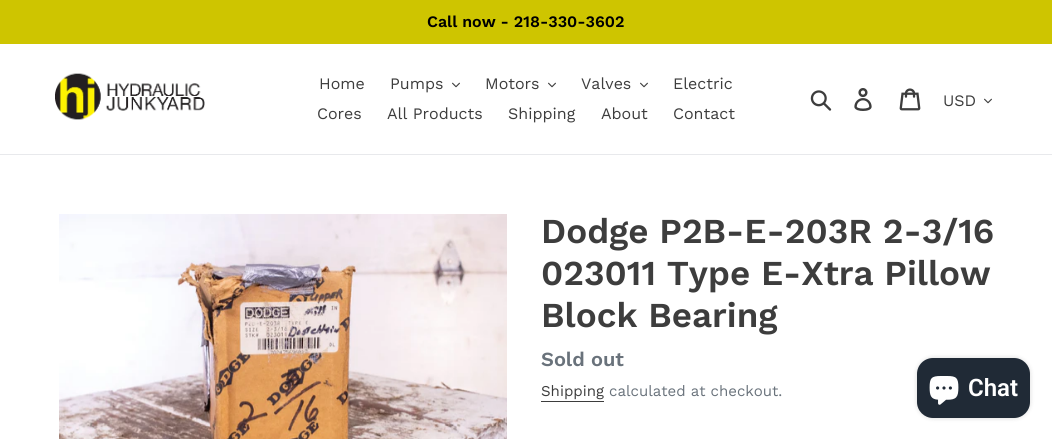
#include <cairo.h>
#include <math.h>
#include <stddef.h>


static void round_rect(cairo_t *cr, double x, double y, double w, double h, double r) {
    cairo_new_sub_path(cr);
    cairo_arc(cr, x + w - r, y + h - r, r, 0, M_PI / 2);
    cairo_arc(cr, x + r, y + h - r, r, M_PI / 2, M_PI);
    cairo_arc(cr, x + r, y + r, r, M_PI, 1.5 * M_PI);
    cairo_arc(cr, x + w - r, y + r, r, 1.5 * M_PI, 2 * M_PI);
    cairo_close_path(cr);
}

static void shadow(cairo_t *cr, double x, double y, double w, double h, double r, double blur, double alpha) {
    cairo_push_group_with_content(cr, CAIRO_CONTENT_ALPHA);
    cairo_set_operator(cr, CAIRO_OPERATOR_SOURCE);
    for (int i = 15; i >= -15 && fmin(w, h) + blur * i / 3 > 0; i -= 2) {
        double e = blur * i / 6;
        cairo_set_source_rgba(cr, 0, 0, 0, alpha * erfc((i - 1) / 8.5) / 2);
        round_rect(cr, x - e, y - e, w + 2 * e, h + 2 * e, fmax(0, fmin(r + e + blur * .6, fmin(w, h) / 2 + e)));
        cairo_fill(cr);
    }
    cairo_pattern_t *soft = cairo_pop_group(cr);
    cairo_mask(cr, soft);
    cairo_pattern_destroy(soft);
}

static void picture(cairo_t *cr, const char *path, double x, double y, double w, double h) {
    cairo_surface_t *image = cairo_image_surface_create_from_png(path);
    cairo_save(cr);
    cairo_set_source_surface(cr, image, x, y);
    cairo_rectangle(cr, x, y, w, h);
    cairo_fill(cr);
    cairo_restore(cr);
    cairo_surface_destroy(image);
}

int main(void) {
    cairo_surface_t *surface = cairo_image_surface_create(CAIRO_FORMAT_RGB24, 1052, 439);
    cairo_t *cr = cairo_create(surface);
    cairo_font_options_t *options = cairo_font_options_create();
    cairo_font_options_set_hint_metrics(options, CAIRO_HINT_METRICS_OFF);
    cairo_font_options_set_hint_style(options, CAIRO_HINT_STYLE_NONE);
    cairo_set_font_options(cr, options);
    cairo_set_miter_limit(cr, 4);
    cairo_set_source_rgb(cr, 1, 1, 1);
    cairo_paint(cr);
    cairo_set_source_rgb(cr, 0.808, 0.773, 0);
    cairo_rectangle(cr, 0, 0, 1052, 44);
    cairo_fill(cr);
    cairo_select_font_face(cr, "Work Sans SemiBold", CAIRO_FONT_SLANT_NORMAL, CAIRO_FONT_WEIGHT_NORMAL);
    cairo_set_font_size(cr, 16);
    cairo_set_source_rgb(cr, 0, 0, 0);
    cairo_move_to(cr, 427, 27);
    cairo_show_text(cr, "Call now - 218-330-3602");
    cairo_set_source_rgb(cr, 0.91, 0.914, 0.922);
    cairo_rectangle(cr, 0, 154, 1052, 1);
    cairo_fill(cr);
    picture(cr, "img1.png", 55, 73, 150, 47);
    cairo_select_font_face(cr, "Work Sans", CAIRO_FONT_SLANT_NORMAL, CAIRO_FONT_WEIGHT_NORMAL);
    cairo_set_source_rgb(cr, 0.239, 0.239, 0.239);
    cairo_move_to(cr, 319, 89);
    cairo_show_text(cr, "Home");
    cairo_move_to(cr, 390, 89);
    cairo_show_text(cr, "Pumps");
    picture(cr, "img2.png", 452, 82, 8, 6);
    cairo_move_to(cr, 485, 89);
    cairo_show_text(cr, "Motors");
    picture(cr, "img2.png", 548, 82, 8, 6);
    cairo_move_to(cr, 581, 89);
    cairo_show_text(cr, "Valves");
    picture(cr, "img2.png", 640, 82, 8, 6);
    cairo_move_to(cr, 673, 89);
    cairo_show_text(cr, "Electric");
    cairo_move_to(cr, 317, 119);
    cairo_show_text(cr, "Cores");
    cairo_move_to(cr, 387, 119);
    cairo_show_text(cr, "All Products");
    cairo_move_to(cr, 508, 119);
    cairo_show_text(cr, "Shipping");
    cairo_move_to(cr, 601, 119);
    cairo_show_text(cr, "About");
    cairo_move_to(cr, 673, 119);
    cairo_show_text(cr, "Contact");
    picture(cr, "img3.png", 810, 90, 22, 21);
    picture(cr, "img4.png", 854, 88, 18, 23);
    picture(cr, "img5.png", 899, 88, 22, 23);
    cairo_move_to(cr, 943, 106);
    cairo_show_text(cr, "USD");
    picture(cr, "img2.png", 984, 98, 8, 6);
    picture(cr, "img6.png", 59, 214, 448, 225);
    cairo_select_font_face(cr, "Work Sans SemiBold", CAIRO_FONT_SLANT_NORMAL, CAIRO_FONT_WEIGHT_NORMAL);
    cairo_set_font_size(cr, 35);
    cairo_move_to(cr, 541, 243);
    cairo_show_text(cr, "Dodge P2B-E-203R 2-3/16");
    cairo_move_to(cr, 541, 285);
    cairo_show_text(cr, "023011 Type E-Xtra Pillow");
    cairo_move_to(cr, 541, 327);
    cairo_show_text(cr, "Block Bearing");
    cairo_set_font_size(cr, 20);
    cairo_set_source_rgb(cr, 0.412, 0.447, 0.482);
    cairo_move_to(cr, 541, 366);
    cairo_show_text(cr, "Sold out");
    cairo_select_font_face(cr, "Work Sans", CAIRO_FONT_SLANT_NORMAL, CAIRO_FONT_WEIGHT_NORMAL);
    cairo_set_font_size(cr, 15);
    cairo_set_source_rgb(cr, 0.239, 0.239, 0.239);
    cairo_move_to(cr, 541, 396);
    cairo_show_text(cr, "Shipping");
    cairo_rectangle(cr, 541, 401, 63, 1);
    cairo_fill(cr);
    cairo_set_source_rgb(cr, 0.412, 0.447, 0.482);
    cairo_move_to(cr, 609, 396);
    cairo_show_text(cr, "calculated at checkout.");
    cairo_set_source_rgb(cr, 0, 0, 0);
    shadow(cr, 917, 358, 113, 60, 16, 2.5, 0.15);
    cairo_set_source_rgb(cr, 0.125, 0.165, 0.212);
    round_rect(cr, 917, 358, 113, 60, 16);
    cairo_fill(cr);
    picture(cr, "img7.png", 929, 376, 30, 29);
    cairo_select_font_face(cr, "Roboto SemiBold", CAIRO_FONT_SLANT_NORMAL, CAIRO_FONT_WEIGHT_NORMAL);
    cairo_set_font_size(cr, 24);
    cairo_set_source_rgb(cr, 1, 1, 1);
    cairo_move_to(cr, 968, 396);
    cairo_show_text(cr, "Chat");
    cairo_surface_write_to_png(surface, "page.png");
    cairo_font_options_destroy(options);
    cairo_destroy(cr);
    cairo_surface_destroy(surface);
    return 0;
}
